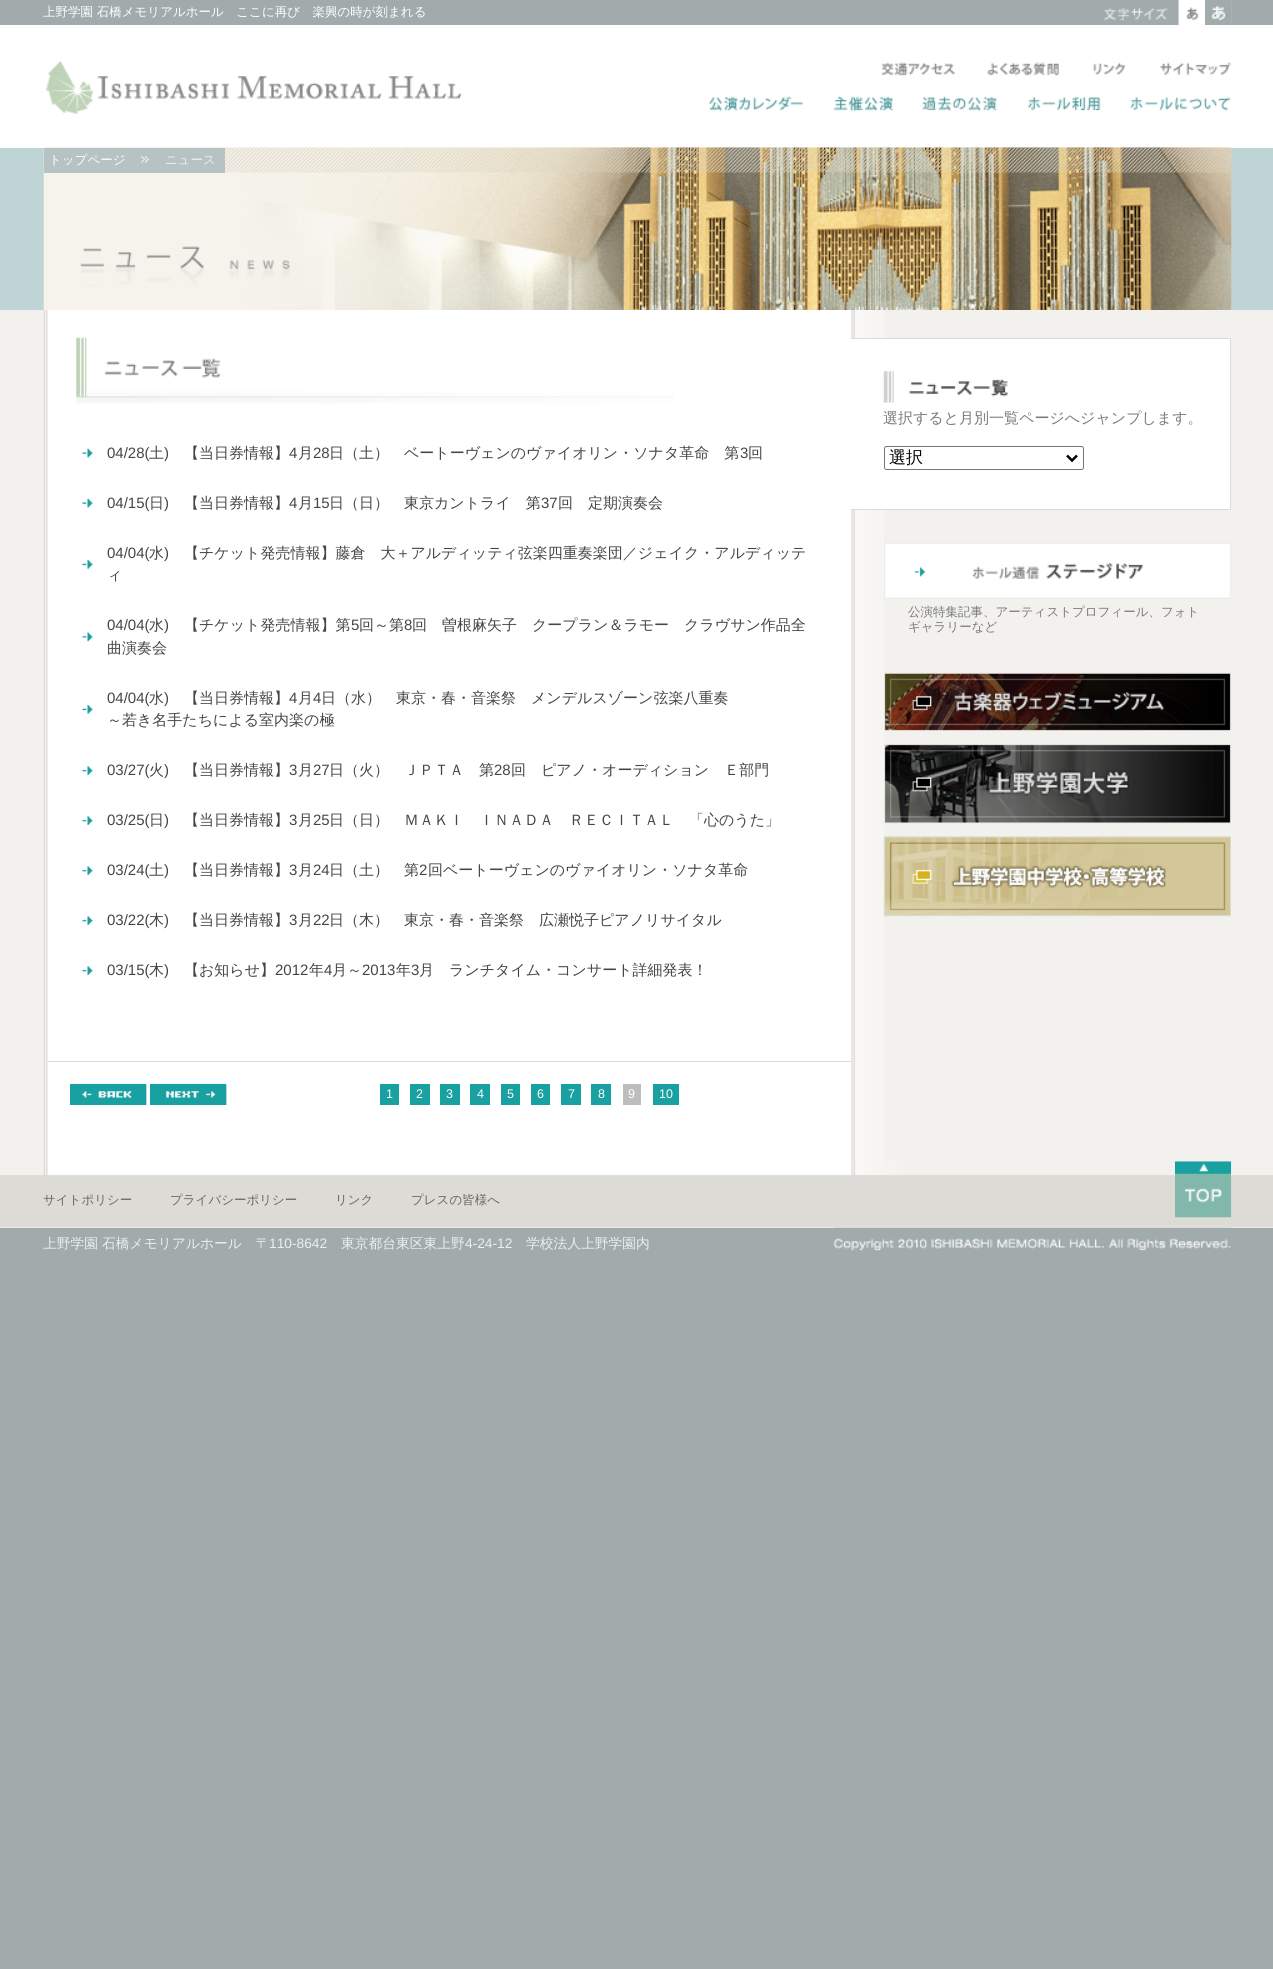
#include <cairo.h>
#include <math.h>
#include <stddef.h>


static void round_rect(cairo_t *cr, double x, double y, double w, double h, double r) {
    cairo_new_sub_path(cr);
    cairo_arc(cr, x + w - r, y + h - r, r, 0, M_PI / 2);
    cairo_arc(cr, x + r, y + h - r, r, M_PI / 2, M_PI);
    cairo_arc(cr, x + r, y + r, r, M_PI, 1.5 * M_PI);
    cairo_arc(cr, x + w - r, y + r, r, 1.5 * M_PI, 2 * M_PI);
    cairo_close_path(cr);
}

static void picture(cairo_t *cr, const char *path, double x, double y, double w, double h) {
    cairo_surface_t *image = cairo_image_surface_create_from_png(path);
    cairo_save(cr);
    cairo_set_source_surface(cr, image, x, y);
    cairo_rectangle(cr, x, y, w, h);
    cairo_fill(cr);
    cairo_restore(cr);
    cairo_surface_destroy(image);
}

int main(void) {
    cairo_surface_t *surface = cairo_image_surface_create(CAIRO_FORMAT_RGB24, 1273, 1969);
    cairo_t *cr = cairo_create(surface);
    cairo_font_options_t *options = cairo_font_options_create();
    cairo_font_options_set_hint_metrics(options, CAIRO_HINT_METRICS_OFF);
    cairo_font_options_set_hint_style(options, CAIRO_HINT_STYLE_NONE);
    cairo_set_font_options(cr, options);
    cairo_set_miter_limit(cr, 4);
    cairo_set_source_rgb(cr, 0.635, 0.671, 0.671);
    cairo_paint(cr);
    cairo_select_font_face(cr, "WenQuanYi Zen Hei Medium", CAIRO_FONT_SLANT_NORMAL, CAIRO_FONT_WEIGHT_NORMAL);
    cairo_set_font_size(cr, 12.5);
    cairo_set_source_rgb(cr, 1, 1, 1);
    cairo_move_to(cr, 43, 16);
    cairo_show_text(cr, "上野学園 石橋メモリアルホール　ここに再び　楽興の時が刻まれる");
    picture(cr, "img1.png", 1103, 7, 65, 14);
    picture(cr, "img2.png", 1179, 0, 26, 25);
    cairo_set_source_rgb(cr, 0.796, 0.816, 0.816);
    cairo_rectangle(cr, 1178, 0, 1, 25);
    cairo_fill(cr);
    picture(cr, "img3.png", 1231, 0, 1, 25);
    picture(cr, "img4.png", 1205, 0, 26, 25);
    cairo_set_source_rgb(cr, 1, 1, 1);
    cairo_rectangle(cr, 0, 25, 1273, 123);
    cairo_fill(cr);
    picture(cr, "img5.png", 46, 61, 416, 53);
    picture(cr, "img6.png", 881, 62, 75, 23);
    picture(cr, "img7.png", 987, 62, 72, 23);
    picture(cr, "img8.png", 1093, 62, 33, 19);
    picture(cr, "img9.png", 1159, 62, 73, 23);
    picture(cr, "img10.png", 1160, 62, 71, 23);
    picture(cr, "img11.png", 708, 96, 1, 23);
    picture(cr, "img12.png", 709, 96, 94, 23);
    picture(cr, "img13.png", 833, 96, 1, 24);
    picture(cr, "img14.png", 834, 96, 59, 24);
    picture(cr, "img15.png", 922, 96, 75, 1);
    picture(cr, "img16.png", 922, 97, 75, 22);
    picture(cr, "img17.png", 1027, 96, 74, 24);
    picture(cr, "img18.png", 1027, 97, 73, 23);
    picture(cr, "img19.png", 1130, 97, 100, 22);
    cairo_set_source_rgb(cr, 0.749, 0.831, 0.831);
    cairo_rectangle(cr, 0, 148, 1273, 162);
    cairo_fill(cr);
    picture(cr, "img20.png", 43, 147, 1189, 163);
    picture(cr, "img21.png", 43, 147, 1188, 26);
    cairo_set_source_rgb(cr, 0.718, 0.761, 0.761);
    cairo_rectangle(cr, 44, 148, 181, 25);
    cairo_fill(cr);
    cairo_set_source_rgb(cr, 1, 1, 1);
    cairo_move_to(cr, 49, 164);
    cairo_show_text(cr, "トップページ");
    picture(cr, "img22.png", 141, 156, 8, 7);
    cairo_set_source_rgb(cr, 0.933, 0.933, 0.933);
    cairo_move_to(cr, 165, 164);
    cairo_show_text(cr, "ニュース");
    picture(cr, "img23.png", 80, 246, 211, 41);
    cairo_set_source_rgb(cr, 0.953, 0.945, 0.929);
    cairo_rectangle(cr, 0, 310, 1273, 918);
    cairo_fill(cr);
    picture(cr, "img24.png", 43, 310, 841, 852);
    picture(cr, "img25.png", 76, 337, 598, 67);
    picture(cr, "img26.png", 82, 448, 11, 10);
    cairo_select_font_face(cr, "Liberation Sans", CAIRO_FONT_SLANT_NORMAL, CAIRO_FONT_WEIGHT_NORMAL);
    cairo_set_font_size(cr, 15);
    cairo_set_source_rgb(cr, 0.271, 0.271, 0.271);
    cairo_move_to(cr, 107, 458);
    cairo_show_text(cr, "04/28(");
    cairo_select_font_face(cr, "WenQuanYi Zen Hei Medium", CAIRO_FONT_SLANT_NORMAL, CAIRO_FONT_WEIGHT_NORMAL);
    cairo_move_to(cr, 149, 458);
    cairo_show_text(cr, "土");
    cairo_select_font_face(cr, "Liberation Sans", CAIRO_FONT_SLANT_NORMAL, CAIRO_FONT_WEIGHT_NORMAL);
    cairo_move_to(cr, 164, 458);
    cairo_show_text(cr, ")");
    cairo_select_font_face(cr, "WenQuanYi Zen Hei Medium", CAIRO_FONT_SLANT_NORMAL, CAIRO_FONT_WEIGHT_NORMAL);
    cairo_move_to(cr, 184, 458);
    cairo_show_text(cr, "【当日券情報】");
    cairo_select_font_face(cr, "Liberation Sans", CAIRO_FONT_SLANT_NORMAL, CAIRO_FONT_WEIGHT_NORMAL);
    cairo_move_to(cr, 289, 458);
    cairo_show_text(cr, "4");
    cairo_select_font_face(cr, "WenQuanYi Zen Hei Medium", CAIRO_FONT_SLANT_NORMAL, CAIRO_FONT_WEIGHT_NORMAL);
    cairo_move_to(cr, 298, 458);
    cairo_show_text(cr, "月");
    cairo_select_font_face(cr, "Liberation Sans", CAIRO_FONT_SLANT_NORMAL, CAIRO_FONT_WEIGHT_NORMAL);
    cairo_move_to(cr, 313, 458);
    cairo_show_text(cr, "28");
    cairo_select_font_face(cr, "WenQuanYi Zen Hei Medium", CAIRO_FONT_SLANT_NORMAL, CAIRO_FONT_WEIGHT_NORMAL);
    cairo_move_to(cr, 329, 458);
    cairo_show_text(cr, "日（土）　ベートーヴェンのヴァイオリン・ソナタ革命　第");
    cairo_select_font_face(cr, "Liberation Sans", CAIRO_FONT_SLANT_NORMAL, CAIRO_FONT_WEIGHT_NORMAL);
    cairo_move_to(cr, 740, 458);
    cairo_show_text(cr, "3");
    cairo_select_font_face(cr, "WenQuanYi Zen Hei Medium", CAIRO_FONT_SLANT_NORMAL, CAIRO_FONT_WEIGHT_NORMAL);
    cairo_move_to(cr, 748, 458);
    cairo_show_text(cr, "回");
    picture(cr, "img26.png", 82, 498, 11, 10);
    cairo_select_font_face(cr, "Liberation Sans", CAIRO_FONT_SLANT_NORMAL, CAIRO_FONT_WEIGHT_NORMAL);
    cairo_move_to(cr, 107, 508);
    cairo_show_text(cr, "04/15(");
    cairo_select_font_face(cr, "WenQuanYi Zen Hei Medium", CAIRO_FONT_SLANT_NORMAL, CAIRO_FONT_WEIGHT_NORMAL);
    cairo_move_to(cr, 149, 508);
    cairo_show_text(cr, "日");
    cairo_select_font_face(cr, "Liberation Sans", CAIRO_FONT_SLANT_NORMAL, CAIRO_FONT_WEIGHT_NORMAL);
    cairo_move_to(cr, 164, 508);
    cairo_show_text(cr, ")");
    cairo_select_font_face(cr, "WenQuanYi Zen Hei Medium", CAIRO_FONT_SLANT_NORMAL, CAIRO_FONT_WEIGHT_NORMAL);
    cairo_move_to(cr, 184, 508);
    cairo_show_text(cr, "【当日券情報】");
    cairo_select_font_face(cr, "Liberation Sans", CAIRO_FONT_SLANT_NORMAL, CAIRO_FONT_WEIGHT_NORMAL);
    cairo_move_to(cr, 289, 508);
    cairo_show_text(cr, "4");
    cairo_select_font_face(cr, "WenQuanYi Zen Hei Medium", CAIRO_FONT_SLANT_NORMAL, CAIRO_FONT_WEIGHT_NORMAL);
    cairo_move_to(cr, 298, 508);
    cairo_show_text(cr, "月");
    cairo_select_font_face(cr, "Liberation Sans", CAIRO_FONT_SLANT_NORMAL, CAIRO_FONT_WEIGHT_NORMAL);
    cairo_move_to(cr, 313, 508);
    cairo_show_text(cr, "15");
    cairo_select_font_face(cr, "WenQuanYi Zen Hei Medium", CAIRO_FONT_SLANT_NORMAL, CAIRO_FONT_WEIGHT_NORMAL);
    cairo_move_to(cr, 329, 508);
    cairo_show_text(cr, "日（日）　東京カントライ　第");
    cairo_select_font_face(cr, "Liberation Sans", CAIRO_FONT_SLANT_NORMAL, CAIRO_FONT_WEIGHT_NORMAL);
    cairo_move_to(cr, 541, 508);
    cairo_show_text(cr, "37");
    cairo_select_font_face(cr, "WenQuanYi Zen Hei Medium", CAIRO_FONT_SLANT_NORMAL, CAIRO_FONT_WEIGHT_NORMAL);
    cairo_move_to(cr, 558, 508);
    cairo_show_text(cr, "回　定期演奏会");
    picture(cr, "img27.png", 82, 560, 11, 9);
    cairo_select_font_face(cr, "Liberation Sans", CAIRO_FONT_SLANT_NORMAL, CAIRO_FONT_WEIGHT_NORMAL);
    cairo_move_to(cr, 107, 558);
    cairo_show_text(cr, "04/04(");
    cairo_select_font_face(cr, "WenQuanYi Zen Hei Medium", CAIRO_FONT_SLANT_NORMAL, CAIRO_FONT_WEIGHT_NORMAL);
    cairo_move_to(cr, 149, 558);
    cairo_show_text(cr, "水");
    cairo_select_font_face(cr, "Liberation Sans", CAIRO_FONT_SLANT_NORMAL, CAIRO_FONT_WEIGHT_NORMAL);
    cairo_move_to(cr, 164, 558);
    cairo_show_text(cr, ")");
    cairo_select_font_face(cr, "WenQuanYi Zen Hei Medium", CAIRO_FONT_SLANT_NORMAL, CAIRO_FONT_WEIGHT_NORMAL);
    cairo_move_to(cr, 184, 558);
    cairo_show_text(cr, "【チケット発売情報】藤倉　大＋アルディッティ弦楽四重奏楽団／ジェイク・アルディッテ");
    cairo_move_to(cr, 107, 580);
    cairo_show_text(cr, "ィ");
    picture(cr, "img28.png", 82, 632, 11, 10);
    cairo_select_font_face(cr, "Liberation Sans", CAIRO_FONT_SLANT_NORMAL, CAIRO_FONT_WEIGHT_NORMAL);
    cairo_move_to(cr, 107, 630);
    cairo_show_text(cr, "04/04(");
    cairo_select_font_face(cr, "WenQuanYi Zen Hei Medium", CAIRO_FONT_SLANT_NORMAL, CAIRO_FONT_WEIGHT_NORMAL);
    cairo_move_to(cr, 149, 630);
    cairo_show_text(cr, "水");
    cairo_select_font_face(cr, "Liberation Sans", CAIRO_FONT_SLANT_NORMAL, CAIRO_FONT_WEIGHT_NORMAL);
    cairo_move_to(cr, 164, 630);
    cairo_show_text(cr, ")");
    cairo_select_font_face(cr, "WenQuanYi Zen Hei Medium", CAIRO_FONT_SLANT_NORMAL, CAIRO_FONT_WEIGHT_NORMAL);
    cairo_move_to(cr, 184, 630);
    cairo_show_text(cr, "【チケット発売情報】第");
    cairo_select_font_face(cr, "Liberation Sans", CAIRO_FONT_SLANT_NORMAL, CAIRO_FONT_WEIGHT_NORMAL);
    cairo_move_to(cr, 351, 630);
    cairo_show_text(cr, "5");
    cairo_select_font_face(cr, "WenQuanYi Zen Hei Medium", CAIRO_FONT_SLANT_NORMAL, CAIRO_FONT_WEIGHT_NORMAL);
    cairo_move_to(cr, 359, 630);
    cairo_show_text(cr, "回～第");
    cairo_select_font_face(cr, "Liberation Sans", CAIRO_FONT_SLANT_NORMAL, CAIRO_FONT_WEIGHT_NORMAL);
    cairo_move_to(cr, 404, 630);
    cairo_show_text(cr, "8");
    cairo_select_font_face(cr, "WenQuanYi Zen Hei Medium", CAIRO_FONT_SLANT_NORMAL, CAIRO_FONT_WEIGHT_NORMAL);
    cairo_move_to(cr, 412, 630);
    cairo_show_text(cr, "回　曽根麻矢子　クープラン＆ラモー　クラヴサン作品全");
    cairo_move_to(cr, 107, 653);
    cairo_show_text(cr, "曲演奏会");
    picture(cr, "img27.png", 82, 705, 11, 9);
    cairo_select_font_face(cr, "Liberation Sans", CAIRO_FONT_SLANT_NORMAL, CAIRO_FONT_WEIGHT_NORMAL);
    cairo_move_to(cr, 107, 703);
    cairo_show_text(cr, "04/04(");
    cairo_select_font_face(cr, "WenQuanYi Zen Hei Medium", CAIRO_FONT_SLANT_NORMAL, CAIRO_FONT_WEIGHT_NORMAL);
    cairo_move_to(cr, 149, 703);
    cairo_show_text(cr, "水");
    cairo_select_font_face(cr, "Liberation Sans", CAIRO_FONT_SLANT_NORMAL, CAIRO_FONT_WEIGHT_NORMAL);
    cairo_move_to(cr, 164, 703);
    cairo_show_text(cr, ")");
    cairo_select_font_face(cr, "WenQuanYi Zen Hei Medium", CAIRO_FONT_SLANT_NORMAL, CAIRO_FONT_WEIGHT_NORMAL);
    cairo_move_to(cr, 184, 703);
    cairo_show_text(cr, "【当日券情報】");
    cairo_select_font_face(cr, "Liberation Sans", CAIRO_FONT_SLANT_NORMAL, CAIRO_FONT_WEIGHT_NORMAL);
    cairo_move_to(cr, 289, 703);
    cairo_show_text(cr, "4");
    cairo_select_font_face(cr, "WenQuanYi Zen Hei Medium", CAIRO_FONT_SLANT_NORMAL, CAIRO_FONT_WEIGHT_NORMAL);
    cairo_move_to(cr, 298, 703);
    cairo_show_text(cr, "月");
    cairo_select_font_face(cr, "Liberation Sans", CAIRO_FONT_SLANT_NORMAL, CAIRO_FONT_WEIGHT_NORMAL);
    cairo_move_to(cr, 313, 703);
    cairo_show_text(cr, "4");
    cairo_select_font_face(cr, "WenQuanYi Zen Hei Medium", CAIRO_FONT_SLANT_NORMAL, CAIRO_FONT_WEIGHT_NORMAL);
    cairo_move_to(cr, 321, 703);
    cairo_show_text(cr, "日（水）　東京・春・音楽祭　メンデルスゾーン弦楽八重奏");
    cairo_move_to(cr, 107, 725);
    cairo_show_text(cr, "～若き名手たちによる室内楽の極");
    picture(cr, "img29.png", 82, 766, 11, 9);
    cairo_select_font_face(cr, "Liberation Sans", CAIRO_FONT_SLANT_NORMAL, CAIRO_FONT_WEIGHT_NORMAL);
    cairo_move_to(cr, 107, 775);
    cairo_show_text(cr, "03/27(");
    cairo_select_font_face(cr, "WenQuanYi Zen Hei Medium", CAIRO_FONT_SLANT_NORMAL, CAIRO_FONT_WEIGHT_NORMAL);
    cairo_move_to(cr, 149, 775);
    cairo_show_text(cr, "火");
    cairo_select_font_face(cr, "Liberation Sans", CAIRO_FONT_SLANT_NORMAL, CAIRO_FONT_WEIGHT_NORMAL);
    cairo_move_to(cr, 164, 775);
    cairo_show_text(cr, ")");
    cairo_select_font_face(cr, "WenQuanYi Zen Hei Medium", CAIRO_FONT_SLANT_NORMAL, CAIRO_FONT_WEIGHT_NORMAL);
    cairo_move_to(cr, 184, 775);
    cairo_show_text(cr, "【当日券情報】");
    cairo_select_font_face(cr, "Liberation Sans", CAIRO_FONT_SLANT_NORMAL, CAIRO_FONT_WEIGHT_NORMAL);
    cairo_move_to(cr, 289, 775);
    cairo_show_text(cr, "3");
    cairo_select_font_face(cr, "WenQuanYi Zen Hei Medium", CAIRO_FONT_SLANT_NORMAL, CAIRO_FONT_WEIGHT_NORMAL);
    cairo_move_to(cr, 298, 775);
    cairo_show_text(cr, "月");
    cairo_select_font_face(cr, "Liberation Sans", CAIRO_FONT_SLANT_NORMAL, CAIRO_FONT_WEIGHT_NORMAL);
    cairo_move_to(cr, 313, 775);
    cairo_show_text(cr, "27");
    cairo_select_font_face(cr, "WenQuanYi Zen Hei Medium", CAIRO_FONT_SLANT_NORMAL, CAIRO_FONT_WEIGHT_NORMAL);
    cairo_move_to(cr, 329, 775);
    cairo_show_text(cr, "日（火）　ＪＰＴＡ　第");
    cairo_select_font_face(cr, "Liberation Sans", CAIRO_FONT_SLANT_NORMAL, CAIRO_FONT_WEIGHT_NORMAL);
    cairo_move_to(cr, 494, 775);
    cairo_show_text(cr, "28");
    cairo_select_font_face(cr, "WenQuanYi Zen Hei Medium", CAIRO_FONT_SLANT_NORMAL, CAIRO_FONT_WEIGHT_NORMAL);
    cairo_move_to(cr, 511, 775);
    cairo_show_text(cr, "回　ピアノ・オーディション　Ｅ部門");
    picture(cr, "img29.png", 82, 816, 11, 9);
    cairo_select_font_face(cr, "Liberation Sans", CAIRO_FONT_SLANT_NORMAL, CAIRO_FONT_WEIGHT_NORMAL);
    cairo_move_to(cr, 107, 825);
    cairo_show_text(cr, "03/25(");
    cairo_select_font_face(cr, "WenQuanYi Zen Hei Medium", CAIRO_FONT_SLANT_NORMAL, CAIRO_FONT_WEIGHT_NORMAL);
    cairo_move_to(cr, 149, 825);
    cairo_show_text(cr, "日");
    cairo_select_font_face(cr, "Liberation Sans", CAIRO_FONT_SLANT_NORMAL, CAIRO_FONT_WEIGHT_NORMAL);
    cairo_move_to(cr, 164, 825);
    cairo_show_text(cr, ")");
    cairo_select_font_face(cr, "WenQuanYi Zen Hei Medium", CAIRO_FONT_SLANT_NORMAL, CAIRO_FONT_WEIGHT_NORMAL);
    cairo_move_to(cr, 184, 825);
    cairo_show_text(cr, "【当日券情報】");
    cairo_select_font_face(cr, "Liberation Sans", CAIRO_FONT_SLANT_NORMAL, CAIRO_FONT_WEIGHT_NORMAL);
    cairo_move_to(cr, 289, 825);
    cairo_show_text(cr, "3");
    cairo_select_font_face(cr, "WenQuanYi Zen Hei Medium", CAIRO_FONT_SLANT_NORMAL, CAIRO_FONT_WEIGHT_NORMAL);
    cairo_move_to(cr, 298, 825);
    cairo_show_text(cr, "月");
    cairo_select_font_face(cr, "Liberation Sans", CAIRO_FONT_SLANT_NORMAL, CAIRO_FONT_WEIGHT_NORMAL);
    cairo_move_to(cr, 313, 825);
    cairo_show_text(cr, "25");
    cairo_select_font_face(cr, "WenQuanYi Zen Hei Medium", CAIRO_FONT_SLANT_NORMAL, CAIRO_FONT_WEIGHT_NORMAL);
    cairo_move_to(cr, 329, 825);
    cairo_show_text(cr, "日（日）　ＭＡＫＩ　ＩＮＡＤＡ　ＲＥＣＩＴＡＬ　「心のうた」");
    picture(cr, "img29.png", 82, 866, 11, 9);
    cairo_select_font_face(cr, "Liberation Sans", CAIRO_FONT_SLANT_NORMAL, CAIRO_FONT_WEIGHT_NORMAL);
    cairo_move_to(cr, 107, 875);
    cairo_show_text(cr, "03/24(");
    cairo_select_font_face(cr, "WenQuanYi Zen Hei Medium", CAIRO_FONT_SLANT_NORMAL, CAIRO_FONT_WEIGHT_NORMAL);
    cairo_move_to(cr, 149, 875);
    cairo_show_text(cr, "土");
    cairo_select_font_face(cr, "Liberation Sans", CAIRO_FONT_SLANT_NORMAL, CAIRO_FONT_WEIGHT_NORMAL);
    cairo_move_to(cr, 164, 875);
    cairo_show_text(cr, ")");
    cairo_select_font_face(cr, "WenQuanYi Zen Hei Medium", CAIRO_FONT_SLANT_NORMAL, CAIRO_FONT_WEIGHT_NORMAL);
    cairo_move_to(cr, 184, 875);
    cairo_show_text(cr, "【当日券情報】");
    cairo_select_font_face(cr, "Liberation Sans", CAIRO_FONT_SLANT_NORMAL, CAIRO_FONT_WEIGHT_NORMAL);
    cairo_move_to(cr, 289, 875);
    cairo_show_text(cr, "3");
    cairo_select_font_face(cr, "WenQuanYi Zen Hei Medium", CAIRO_FONT_SLANT_NORMAL, CAIRO_FONT_WEIGHT_NORMAL);
    cairo_move_to(cr, 298, 875);
    cairo_show_text(cr, "月");
    cairo_select_font_face(cr, "Liberation Sans", CAIRO_FONT_SLANT_NORMAL, CAIRO_FONT_WEIGHT_NORMAL);
    cairo_move_to(cr, 313, 875);
    cairo_show_text(cr, "24");
    cairo_select_font_face(cr, "WenQuanYi Zen Hei Medium", CAIRO_FONT_SLANT_NORMAL, CAIRO_FONT_WEIGHT_NORMAL);
    cairo_move_to(cr, 329, 875);
    cairo_show_text(cr, "日（土）　第");
    cairo_select_font_face(cr, "Liberation Sans", CAIRO_FONT_SLANT_NORMAL, CAIRO_FONT_WEIGHT_NORMAL);
    cairo_move_to(cr, 419, 875);
    cairo_show_text(cr, "2");
    cairo_select_font_face(cr, "WenQuanYi Zen Hei Medium", CAIRO_FONT_SLANT_NORMAL, CAIRO_FONT_WEIGHT_NORMAL);
    cairo_move_to(cr, 428, 875);
    cairo_show_text(cr, "回ベートーヴェンのヴァイオリン・ソナタ革命");
    picture(cr, "img29.png", 82, 916, 11, 9);
    cairo_select_font_face(cr, "Liberation Sans", CAIRO_FONT_SLANT_NORMAL, CAIRO_FONT_WEIGHT_NORMAL);
    cairo_move_to(cr, 107, 925);
    cairo_show_text(cr, "03/22(");
    cairo_select_font_face(cr, "WenQuanYi Zen Hei Medium", CAIRO_FONT_SLANT_NORMAL, CAIRO_FONT_WEIGHT_NORMAL);
    cairo_move_to(cr, 149, 925);
    cairo_show_text(cr, "木");
    cairo_select_font_face(cr, "Liberation Sans", CAIRO_FONT_SLANT_NORMAL, CAIRO_FONT_WEIGHT_NORMAL);
    cairo_move_to(cr, 164, 925);
    cairo_show_text(cr, ")");
    cairo_select_font_face(cr, "WenQuanYi Zen Hei Medium", CAIRO_FONT_SLANT_NORMAL, CAIRO_FONT_WEIGHT_NORMAL);
    cairo_move_to(cr, 184, 925);
    cairo_show_text(cr, "【当日券情報】");
    cairo_select_font_face(cr, "Liberation Sans", CAIRO_FONT_SLANT_NORMAL, CAIRO_FONT_WEIGHT_NORMAL);
    cairo_move_to(cr, 289, 925);
    cairo_show_text(cr, "3");
    cairo_select_font_face(cr, "WenQuanYi Zen Hei Medium", CAIRO_FONT_SLANT_NORMAL, CAIRO_FONT_WEIGHT_NORMAL);
    cairo_move_to(cr, 298, 925);
    cairo_show_text(cr, "月");
    cairo_select_font_face(cr, "Liberation Sans", CAIRO_FONT_SLANT_NORMAL, CAIRO_FONT_WEIGHT_NORMAL);
    cairo_move_to(cr, 313, 925);
    cairo_show_text(cr, "22");
    cairo_select_font_face(cr, "WenQuanYi Zen Hei Medium", CAIRO_FONT_SLANT_NORMAL, CAIRO_FONT_WEIGHT_NORMAL);
    cairo_move_to(cr, 329, 925);
    cairo_show_text(cr, "日（木）　東京・春・音楽祭　広瀬悦子ピアノリサイタル");
    picture(cr, "img29.png", 82, 966, 11, 9);
    cairo_select_font_face(cr, "Liberation Sans", CAIRO_FONT_SLANT_NORMAL, CAIRO_FONT_WEIGHT_NORMAL);
    cairo_move_to(cr, 107, 975);
    cairo_show_text(cr, "03/15(");
    cairo_select_font_face(cr, "WenQuanYi Zen Hei Medium", CAIRO_FONT_SLANT_NORMAL, CAIRO_FONT_WEIGHT_NORMAL);
    cairo_move_to(cr, 149, 975);
    cairo_show_text(cr, "木");
    cairo_select_font_face(cr, "Liberation Sans", CAIRO_FONT_SLANT_NORMAL, CAIRO_FONT_WEIGHT_NORMAL);
    cairo_move_to(cr, 164, 975);
    cairo_show_text(cr, ")");
    cairo_select_font_face(cr, "WenQuanYi Zen Hei Medium", CAIRO_FONT_SLANT_NORMAL, CAIRO_FONT_WEIGHT_NORMAL);
    cairo_move_to(cr, 184, 975);
    cairo_show_text(cr, "【お知らせ】");
    cairo_select_font_face(cr, "Liberation Sans", CAIRO_FONT_SLANT_NORMAL, CAIRO_FONT_WEIGHT_NORMAL);
    cairo_move_to(cr, 275, 975);
    cairo_show_text(cr, "2012");
    cairo_select_font_face(cr, "WenQuanYi Zen Hei Medium", CAIRO_FONT_SLANT_NORMAL, CAIRO_FONT_WEIGHT_NORMAL);
    cairo_move_to(cr, 309, 975);
    cairo_show_text(cr, "年");
    cairo_select_font_face(cr, "Liberation Sans", CAIRO_FONT_SLANT_NORMAL, CAIRO_FONT_WEIGHT_NORMAL);
    cairo_move_to(cr, 324, 975);
    cairo_show_text(cr, "4");
    cairo_select_font_face(cr, "WenQuanYi Zen Hei Medium", CAIRO_FONT_SLANT_NORMAL, CAIRO_FONT_WEIGHT_NORMAL);
    cairo_move_to(cr, 332, 975);
    cairo_show_text(cr, "月～");
    cairo_select_font_face(cr, "Liberation Sans", CAIRO_FONT_SLANT_NORMAL, CAIRO_FONT_WEIGHT_NORMAL);
    cairo_move_to(cr, 362, 975);
    cairo_show_text(cr, "2013");
    cairo_select_font_face(cr, "WenQuanYi Zen Hei Medium", CAIRO_FONT_SLANT_NORMAL, CAIRO_FONT_WEIGHT_NORMAL);
    cairo_move_to(cr, 396, 975);
    cairo_show_text(cr, "年");
    cairo_select_font_face(cr, "Liberation Sans", CAIRO_FONT_SLANT_NORMAL, CAIRO_FONT_WEIGHT_NORMAL);
    cairo_move_to(cr, 411, 975);
    cairo_show_text(cr, "3");
    cairo_select_font_face(cr, "WenQuanYi Zen Hei Medium", CAIRO_FONT_SLANT_NORMAL, CAIRO_FONT_WEIGHT_NORMAL);
    cairo_move_to(cr, 419, 975);
    cairo_show_text(cr, "月　ランチタイム・コンサート詳細発表！");
    cairo_set_source_rgb(cr, 0.867, 0.859, 0.839);
    cairo_rectangle(cr, 48, 1061, 803, 1);
    cairo_fill(cr);
    picture(cr, "img30.png", 146, 1084, 1, 21);
    picture(cr, "img31.png", 70, 1083, 77, 22);
    picture(cr, "img30.png", 226, 1084, 1, 21);
    picture(cr, "img32.png", 150, 1083, 77, 22);
    cairo_set_source_rgb(cr, 0.098, 0.627, 0.627);
    cairo_rectangle(cr, 380, 1084, 19, 21);
    cairo_fill(cr);
    cairo_select_font_face(cr, "Liberation Sans", CAIRO_FONT_SLANT_NORMAL, CAIRO_FONT_WEIGHT_NORMAL);
    cairo_set_font_size(cr, 12.5);
    cairo_set_source_rgb(cr, 1, 1, 1);
    cairo_move_to(cr, 386, 1098);
    cairo_show_text(cr, "1");
    cairo_set_source_rgb(cr, 0.098, 0.627, 0.627);
    cairo_rectangle(cr, 410, 1084, 20, 21);
    cairo_fill(cr);
    cairo_set_source_rgb(cr, 1, 1, 1);
    cairo_move_to(cr, 416, 1098);
    cairo_show_text(cr, "2");
    cairo_set_source_rgb(cr, 0.098, 0.627, 0.627);
    cairo_rectangle(cr, 440, 1084, 20, 21);
    cairo_fill(cr);
    cairo_set_source_rgb(cr, 1, 1, 1);
    cairo_move_to(cr, 446, 1098);
    cairo_show_text(cr, "3");
    cairo_set_source_rgb(cr, 0.098, 0.627, 0.627);
    cairo_rectangle(cr, 470, 1084, 20, 21);
    cairo_fill(cr);
    cairo_set_source_rgb(cr, 1, 1, 1);
    cairo_move_to(cr, 477, 1098);
    cairo_show_text(cr, "4");
    cairo_set_source_rgb(cr, 0.098, 0.627, 0.627);
    cairo_rectangle(cr, 501, 1084, 19, 21);
    cairo_fill(cr);
    cairo_set_source_rgb(cr, 1, 1, 1);
    cairo_move_to(cr, 507, 1098);
    cairo_show_text(cr, "5");
    cairo_set_source_rgb(cr, 0.098, 0.627, 0.627);
    cairo_rectangle(cr, 531, 1084, 19, 21);
    cairo_fill(cr);
    cairo_set_source_rgb(cr, 1, 1, 1);
    cairo_move_to(cr, 537, 1098);
    cairo_show_text(cr, "6");
    cairo_set_source_rgb(cr, 0.098, 0.627, 0.627);
    cairo_rectangle(cr, 561, 1084, 20, 21);
    cairo_fill(cr);
    cairo_set_source_rgb(cr, 1, 1, 1);
    cairo_move_to(cr, 568, 1098);
    cairo_show_text(cr, "7");
    cairo_set_source_rgb(cr, 0.098, 0.627, 0.627);
    cairo_rectangle(cr, 591, 1084, 20, 21);
    cairo_fill(cr);
    cairo_set_source_rgb(cr, 1, 1, 1);
    cairo_move_to(cr, 598, 1098);
    cairo_show_text(cr, "8");
    cairo_set_source_rgb(cr, 0.741, 0.741, 0.741);
    cairo_rectangle(cr, 623, 1084, 18, 21);
    cairo_fill(cr);
    cairo_set_source_rgb(cr, 1, 1, 1);
    cairo_move_to(cr, 628, 1098);
    cairo_show_text(cr, "9");
    cairo_set_source_rgb(cr, 0.098, 0.627, 0.627);
    cairo_rectangle(cr, 653, 1084, 26, 21);
    cairo_fill(cr);
    cairo_set_source_rgb(cr, 1, 1, 1);
    cairo_move_to(cr, 659, 1098);
    cairo_show_text(cr, "10");
    cairo_rectangle(cr, 851, 339, 379, 170);
    cairo_fill(cr);
    cairo_set_source_rgb(cr, 0.867, 0.859, 0.839);
    cairo_rectangle(cr, 851, 338, 380, 1);
    cairo_fill(cr);
    cairo_rectangle(cr, 1230, 338, 1, 172);
    cairo_fill(cr);
    cairo_rectangle(cr, 851, 509, 380, 1);
    cairo_fill(cr);
    picture(cr, "img33.png", 883, 371, 125, 32);
    cairo_select_font_face(cr, "WenQuanYi Zen Hei Medium", CAIRO_FONT_SLANT_NORMAL, CAIRO_FONT_WEIGHT_NORMAL);
    cairo_set_font_size(cr, 15);
    cairo_set_source_rgb(cr, 0.475, 0.478, 0.49);
    cairo_move_to(cr, 883, 423);
    cairo_show_text(cr, "選択すると月別一覧ページへジャンプします。");
    round_rect(cr, 884.5, 446.5, 199, 23, 2);
    cairo_set_source_rgb(cr, 0.463, 0.463, 0.463);
    cairo_set_line_width(cr, 1);
    cairo_stroke(cr);
    cairo_new_path(cr);
    cairo_move_to(cr, 1067, 455.5);
    cairo_line_to(cr, 1072, 460.5);
    cairo_line_to(cr, 1077, 455.5);
    cairo_set_source_rgb(cr, 0, 0, 0);
    cairo_set_line_width(cr, 2.5);
    cairo_stroke(cr);
    cairo_set_font_size(cr, 17);
    cairo_move_to(cr, 889, 463);
    cairo_show_text(cr, "選択");
    picture(cr, "img34.png", 884, 542, 347, 57);
    picture(cr, "img35.png", 884, 543, 347, 55);
    cairo_set_font_size(cr, 12.5);
    cairo_set_source_rgb(cr, 0.475, 0.478, 0.49);
    cairo_move_to(cr, 908, 616);
    cairo_show_text(cr, "公演特集記事、アーティストプロフィール、フォト");
    cairo_move_to(cr, 908, 631);
    cairo_show_text(cr, "ギャラリーなど");
    picture(cr, "img36.png", 884, 672, 347, 59);
    picture(cr, "img37.png", 884, 744, 347, 80);
    picture(cr, "img38.png", 883, 836, 348, 81);
    picture(cr, "img39.png", 0, 1175, 1273, 53);
    picture(cr, "img40.png", 43, 1161, 1189, 16);
    cairo_set_source_rgb(cr, 0.4, 0.4, 0.4);
    cairo_move_to(cr, 43, 1204);
    cairo_show_text(cr, "サイトポリシー");
    cairo_move_to(cr, 170, 1204);
    cairo_show_text(cr, "プライバシーポリシー");
    cairo_move_to(cr, 335, 1204);
    cairo_show_text(cr, "リンク");
    cairo_move_to(cr, 411, 1204);
    cairo_show_text(cr, "プレスの皆様へ");
    picture(cr, "img41.png", 1175, 1161, 57, 57);
    cairo_set_font_size(cr, 13.75);
    cairo_set_source_rgb(cr, 0.933, 0.933, 0.933);
    cairo_move_to(cr, 43, 1248);
    cairo_show_text(cr, "上野学園 石橋メモリアルホール　〒");
    cairo_select_font_face(cr, "Liberation Sans", CAIRO_FONT_SLANT_NORMAL, CAIRO_FONT_WEIGHT_NORMAL);
    cairo_move_to(cr, 269, 1248);
    cairo_show_text(cr, "110-8642");
    cairo_select_font_face(cr, "WenQuanYi Zen Hei Medium", CAIRO_FONT_SLANT_NORMAL, CAIRO_FONT_WEIGHT_NORMAL);
    cairo_move_to(cr, 341, 1248);
    cairo_show_text(cr, "東京都台東区東上野");
    cairo_select_font_face(cr, "Liberation Sans", CAIRO_FONT_SLANT_NORMAL, CAIRO_FONT_WEIGHT_NORMAL);
    cairo_move_to(cr, 465, 1248);
    cairo_show_text(cr, "4-24-12");
    cairo_select_font_face(cr, "WenQuanYi Zen Hei Medium", CAIRO_FONT_SLANT_NORMAL, CAIRO_FONT_WEIGHT_NORMAL);
    cairo_move_to(cr, 526, 1248);
    cairo_show_text(cr, "学校法人上野学園内");
    picture(cr, "img42.png", 833, 1227, 398, 24);
    cairo_surface_write_to_png(surface, "page.png");
    cairo_font_options_destroy(options);
    cairo_destroy(cr);
    cairo_surface_destroy(surface);
    return 0;
}
